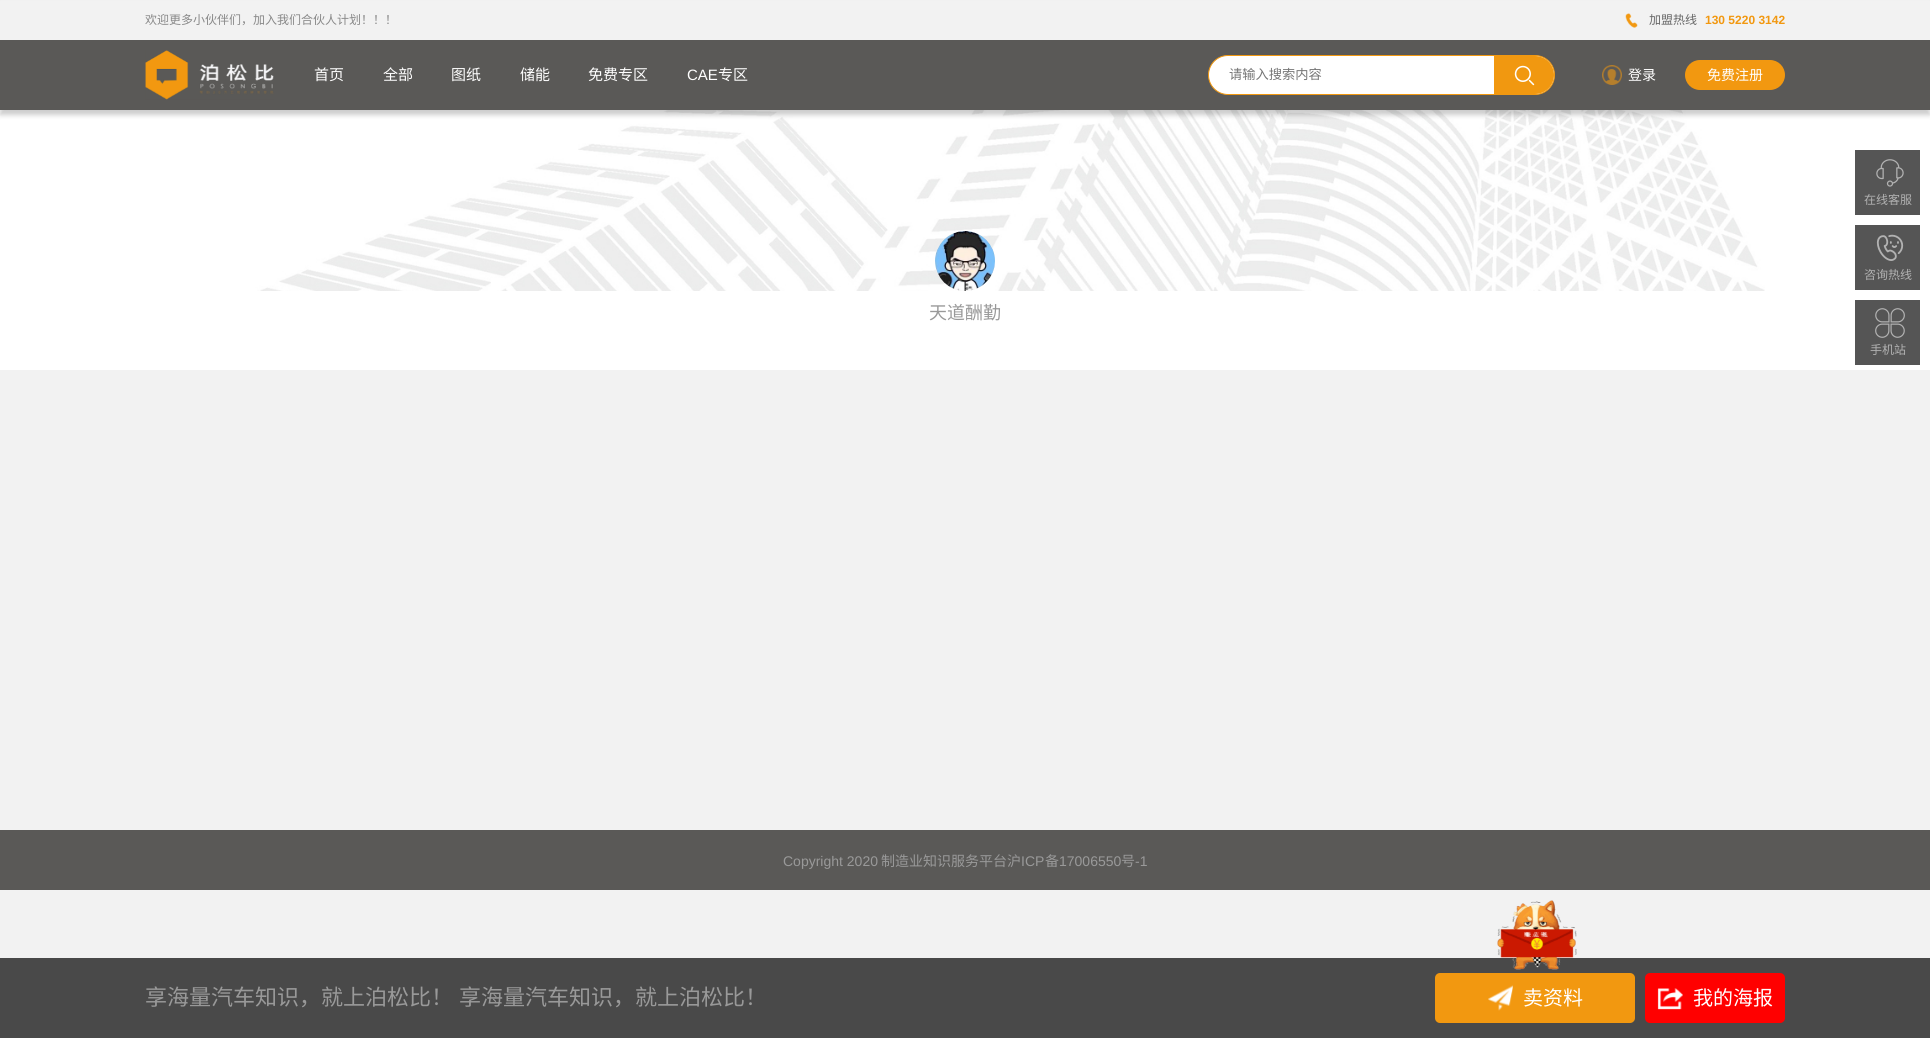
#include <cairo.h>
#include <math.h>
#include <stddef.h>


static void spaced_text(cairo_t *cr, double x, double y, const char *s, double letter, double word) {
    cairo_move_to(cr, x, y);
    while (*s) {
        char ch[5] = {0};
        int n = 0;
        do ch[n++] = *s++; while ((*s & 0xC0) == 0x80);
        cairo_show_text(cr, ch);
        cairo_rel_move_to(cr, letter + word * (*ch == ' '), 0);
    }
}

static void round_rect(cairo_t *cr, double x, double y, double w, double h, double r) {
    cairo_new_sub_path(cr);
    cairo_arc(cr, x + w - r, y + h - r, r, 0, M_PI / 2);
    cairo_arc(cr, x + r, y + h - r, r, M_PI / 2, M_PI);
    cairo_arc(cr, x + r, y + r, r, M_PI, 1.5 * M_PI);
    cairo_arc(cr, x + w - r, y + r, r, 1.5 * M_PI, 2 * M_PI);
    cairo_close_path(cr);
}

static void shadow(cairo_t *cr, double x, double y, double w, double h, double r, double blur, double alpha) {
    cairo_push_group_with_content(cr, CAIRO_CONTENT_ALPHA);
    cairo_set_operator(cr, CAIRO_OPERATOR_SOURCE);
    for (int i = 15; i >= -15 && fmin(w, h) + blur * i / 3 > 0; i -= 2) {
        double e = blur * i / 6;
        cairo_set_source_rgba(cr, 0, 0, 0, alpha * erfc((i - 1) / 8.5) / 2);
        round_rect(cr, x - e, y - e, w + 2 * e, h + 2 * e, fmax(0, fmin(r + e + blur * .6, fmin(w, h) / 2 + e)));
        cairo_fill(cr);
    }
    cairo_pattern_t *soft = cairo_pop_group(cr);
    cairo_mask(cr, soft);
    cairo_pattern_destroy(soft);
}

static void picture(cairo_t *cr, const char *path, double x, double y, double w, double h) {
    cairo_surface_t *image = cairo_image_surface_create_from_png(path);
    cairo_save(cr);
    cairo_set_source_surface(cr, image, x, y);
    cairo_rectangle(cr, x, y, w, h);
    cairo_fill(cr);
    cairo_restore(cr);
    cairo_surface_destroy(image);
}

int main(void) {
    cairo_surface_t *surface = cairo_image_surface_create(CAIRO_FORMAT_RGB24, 1930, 1038);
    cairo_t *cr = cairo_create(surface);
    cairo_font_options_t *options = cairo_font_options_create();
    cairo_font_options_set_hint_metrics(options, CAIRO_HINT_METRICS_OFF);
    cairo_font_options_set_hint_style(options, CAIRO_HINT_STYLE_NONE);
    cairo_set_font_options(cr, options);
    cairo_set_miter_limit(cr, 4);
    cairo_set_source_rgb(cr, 0.949, 0.949, 0.949);
    cairo_paint(cr);
    cairo_set_source_rgb(cr, 1, 1, 1);
    cairo_rectangle(cr, 0, 110, 1930, 260);
    cairo_fill(cr);
    picture(cr, "img5.png", 237, 110, 1528, 181);
    cairo_set_source_rgb(cr, 0, 0, 0);
    shadow(cr, 0, 5, 1930, 110, 0, 2.5, 0.2);
    cairo_set_source_rgb(cr, 0.949, 0.949, 0.949);
    cairo_rectangle(cr, 0, 1, 1930, 39);
    cairo_fill(cr);
    cairo_select_font_face(cr, "Noto Sans CJK SC", CAIRO_FONT_SLANT_NORMAL, CAIRO_FONT_WEIGHT_NORMAL);
    cairo_set_font_size(cr, 12);
    cairo_set_source_rgb(cr, 0.533, 0.533, 0.533);
    cairo_move_to(cr, 145, 24);
    cairo_show_text(cr, "欢迎更多小伙伴们，加入我们合伙人计划！！！");
    picture(cr, "img1.png", 1625, 13, 13, 15);
    cairo_set_source_rgb(cr, 0.4, 0.4, 0.4);
    cairo_move_to(cr, 1649, 24);
    cairo_show_text(cr, "加盟热线");
    cairo_select_font_face(cr, "Liberation Sans", CAIRO_FONT_SLANT_NORMAL, CAIRO_FONT_WEIGHT_BOLD);
    cairo_set_source_rgb(cr, 0.949, 0.596, 0.063);
    cairo_move_to(cr, 1705, 24);
    cairo_show_text(cr, "130 5220 3142");
    cairo_set_source_rgb(cr, 0.353, 0.349, 0.341);
    cairo_rectangle(cr, 0, 40, 1930, 70);
    cairo_fill(cr);
    picture(cr, "img2.png", 145, 50, 129, 50);
    cairo_select_font_face(cr, "Noto Sans CJK SC", CAIRO_FONT_SLANT_NORMAL, CAIRO_FONT_WEIGHT_NORMAL);
    cairo_set_font_size(cr, 15);
    cairo_set_source_rgb(cr, 1, 1, 1);
    cairo_move_to(cr, 314, 80);
    cairo_show_text(cr, "首页");
    cairo_move_to(cr, 383, 80);
    cairo_show_text(cr, "全部");
    cairo_move_to(cr, 451, 80);
    cairo_show_text(cr, "图纸");
    cairo_move_to(cr, 520, 80);
    cairo_show_text(cr, "储能");
    cairo_move_to(cr, 588, 80);
    cairo_show_text(cr, "免费专区");
    cairo_select_font_face(cr, "Liberation Sans", CAIRO_FONT_SLANT_NORMAL, CAIRO_FONT_WEIGHT_NORMAL);
    cairo_move_to(cr, 687, 80);
    cairo_show_text(cr, "CAE");
    cairo_select_font_face(cr, "Noto Sans CJK SC", CAIRO_FONT_SLANT_NORMAL, CAIRO_FONT_WEIGHT_NORMAL);
    cairo_move_to(cr, 718, 80);
    cairo_show_text(cr, "专区");
    round_rect(cr, 1208.5, 55.5, 346, 39, 19.5);
    cairo_fill_preserve(cr);
    cairo_set_source_rgb(cr, 0.945, 0.596, 0.063);
    cairo_set_line_width(cr, 1);
    cairo_stroke(cr);
    cairo_set_font_size(cr, 13.25);
    cairo_set_source_rgb(cr, 0.459, 0.459, 0.459);
    cairo_move_to(cr, 1229, 79);
    cairo_show_text(cr, "请输入搜索内容");
    cairo_set_source_rgb(cr, 0.945, 0.596, 0.063);
    cairo_new_path(cr);
    cairo_move_to(cr, 1494, 56);
    cairo_line_to(cr, 1535, 56);
    cairo_curve_to(cr, 1545.5, 56, 1554, 64.5, 1554, 75);
    cairo_curve_to(cr, 1554, 85.5, 1545.5, 94, 1535, 94);
    cairo_line_to(cr, 1494, 94);
    cairo_close_path(cr);
    cairo_fill(cr);
    picture(cr, "img3.png", 1514, 65, 21, 21);
    picture(cr, "img4.png", 1602, 65, 20, 20);
    cairo_set_font_size(cr, 14);
    cairo_set_source_rgb(cr, 1, 1, 1);
    cairo_move_to(cr, 1628, 80);
    cairo_show_text(cr, "登录");
    cairo_set_source_rgb(cr, 0.949, 0.596, 0.063);
    round_rect(cr, 1685, 60, 100, 30, 15);
    cairo_fill(cr);
    cairo_set_source_rgb(cr, 1, 1, 1);
    cairo_move_to(cr, 1707, 80);
    cairo_show_text(cr, "免费注册");
    cairo_set_source_rgb(cr, 0.933, 0.933, 0.933);
    cairo_new_path(cr);
    cairo_arc(cr, 965, 261, 30, 0, 2 * M_PI);
    cairo_fill(cr);
    picture(cr, "img6.png", 935, 231, 60, 60);
    cairo_set_font_size(cr, 18);
    cairo_set_source_rgb(cr, 0.6, 0.6, 0.6);
    cairo_move_to(cr, 929, 319);
    cairo_show_text(cr, "天道酬勤");
    cairo_set_source_rgb(cr, 0.333, 0.333, 0.333);
    cairo_rectangle(cr, 1855, 150, 65, 65);
    cairo_fill(cr);
    picture(cr, "img7.png", 1876, 159, 28, 28);
    cairo_set_font_size(cr, 12);
    cairo_set_source_rgb(cr, 0.698, 0.698, 0.698);
    cairo_move_to(cr, 1864, 204);
    cairo_show_text(cr, "在线客服");
    cairo_set_source_rgb(cr, 0.333, 0.333, 0.333);
    cairo_rectangle(cr, 1855, 225, 65, 65);
    cairo_fill(cr);
    picture(cr, "img8.png", 1876, 234, 28, 27);
    cairo_set_source_rgb(cr, 0.698, 0.698, 0.698);
    cairo_move_to(cr, 1864, 279);
    cairo_show_text(cr, "咨询热线");
    cairo_set_source_rgb(cr, 0.333, 0.333, 0.333);
    cairo_rectangle(cr, 1855, 300, 65, 65);
    cairo_fill(cr);
    picture(cr, "img9.png", 1875, 308, 30, 30);
    cairo_set_source_rgb(cr, 0.698, 0.698, 0.698);
    cairo_move_to(cr, 1870, 354);
    cairo_show_text(cr, "手机站");
    cairo_set_source_rgb(cr, 0.353, 0.349, 0.341);
    cairo_rectangle(cr, 0, 830, 1930, 60);
    cairo_fill(cr);
    cairo_select_font_face(cr, "Liberation Sans", CAIRO_FONT_SLANT_NORMAL, CAIRO_FONT_WEIGHT_NORMAL);
    cairo_set_font_size(cr, 14);
    cairo_set_source_rgb(cr, 0.6, 0.6, 0.6);
    cairo_move_to(cr, 783, 866);
    cairo_show_text(cr, "Copyright 2020");
    cairo_select_font_face(cr, "Noto Sans CJK SC", CAIRO_FONT_SLANT_NORMAL, CAIRO_FONT_WEIGHT_NORMAL);
    cairo_move_to(cr, 881, 866);
    cairo_show_text(cr, "制造业知识服务平台沪");
    cairo_select_font_face(cr, "Liberation Sans", CAIRO_FONT_SLANT_NORMAL, CAIRO_FONT_WEIGHT_NORMAL);
    cairo_move_to(cr, 1021, 866);
    cairo_show_text(cr, "ICP");
    cairo_select_font_face(cr, "Noto Sans CJK SC", CAIRO_FONT_SLANT_NORMAL, CAIRO_FONT_WEIGHT_NORMAL);
    cairo_move_to(cr, 1045, 866);
    cairo_show_text(cr, "备");
    cairo_select_font_face(cr, "Liberation Sans", CAIRO_FONT_SLANT_NORMAL, CAIRO_FONT_WEIGHT_NORMAL);
    cairo_move_to(cr, 1059, 866);
    cairo_show_text(cr, "17006550");
    cairo_select_font_face(cr, "Noto Sans CJK SC", CAIRO_FONT_SLANT_NORMAL, CAIRO_FONT_WEIGHT_NORMAL);
    cairo_move_to(cr, 1121, 866);
    cairo_show_text(cr, "号");
    cairo_select_font_face(cr, "Liberation Sans", CAIRO_FONT_SLANT_NORMAL, CAIRO_FONT_WEIGHT_NORMAL);
    cairo_move_to(cr, 1135, 866);
    cairo_show_text(cr, "-1");
    cairo_set_source_rgb(cr, 0.286, 0.286, 0.286);
    cairo_rectangle(cr, 0, 958, 1930, 80);
    cairo_fill(cr);
    cairo_select_font_face(cr, "Noto Sans CJK SC", CAIRO_FONT_SLANT_NORMAL, CAIRO_FONT_WEIGHT_NORMAL);
    cairo_set_font_size(cr, 22);
    cairo_set_source_rgb(cr, 0.6, 0.6, 0.6);
    spaced_text(cr, 145, 1005, "享海量汽车知识，就上泊松比！ 享海量汽车知识，就上泊松比！", 0, 1);
    cairo_set_source_rgb(cr, 0.949, 0.596, 0.063);
    round_rect(cr, 1435, 973, 200, 50, 5);
    cairo_fill(cr);
    picture(cr, "img10.png", 1497, 900, 80, 70);
    picture(cr, "img11.png", 1488, 985, 25, 26);
    cairo_set_font_size(cr, 20);
    cairo_set_source_rgb(cr, 1, 1, 1);
    cairo_move_to(cr, 1523, 1005);
    cairo_show_text(cr, "卖资料");
    cairo_set_source_rgb(cr, 1, 0, 0);
    round_rect(cr, 1645, 973, 140, 50, 5);
    cairo_fill(cr);
    picture(cr, "img12.png", 1657, 988, 26, 22);
    cairo_set_source_rgb(cr, 1, 1, 1);
    cairo_move_to(cr, 1693, 1005);
    cairo_show_text(cr, "我的海报");
    cairo_surface_write_to_png(surface, "page.png");
    cairo_font_options_destroy(options);
    cairo_destroy(cr);
    cairo_surface_destroy(surface);
    return 0;
}
